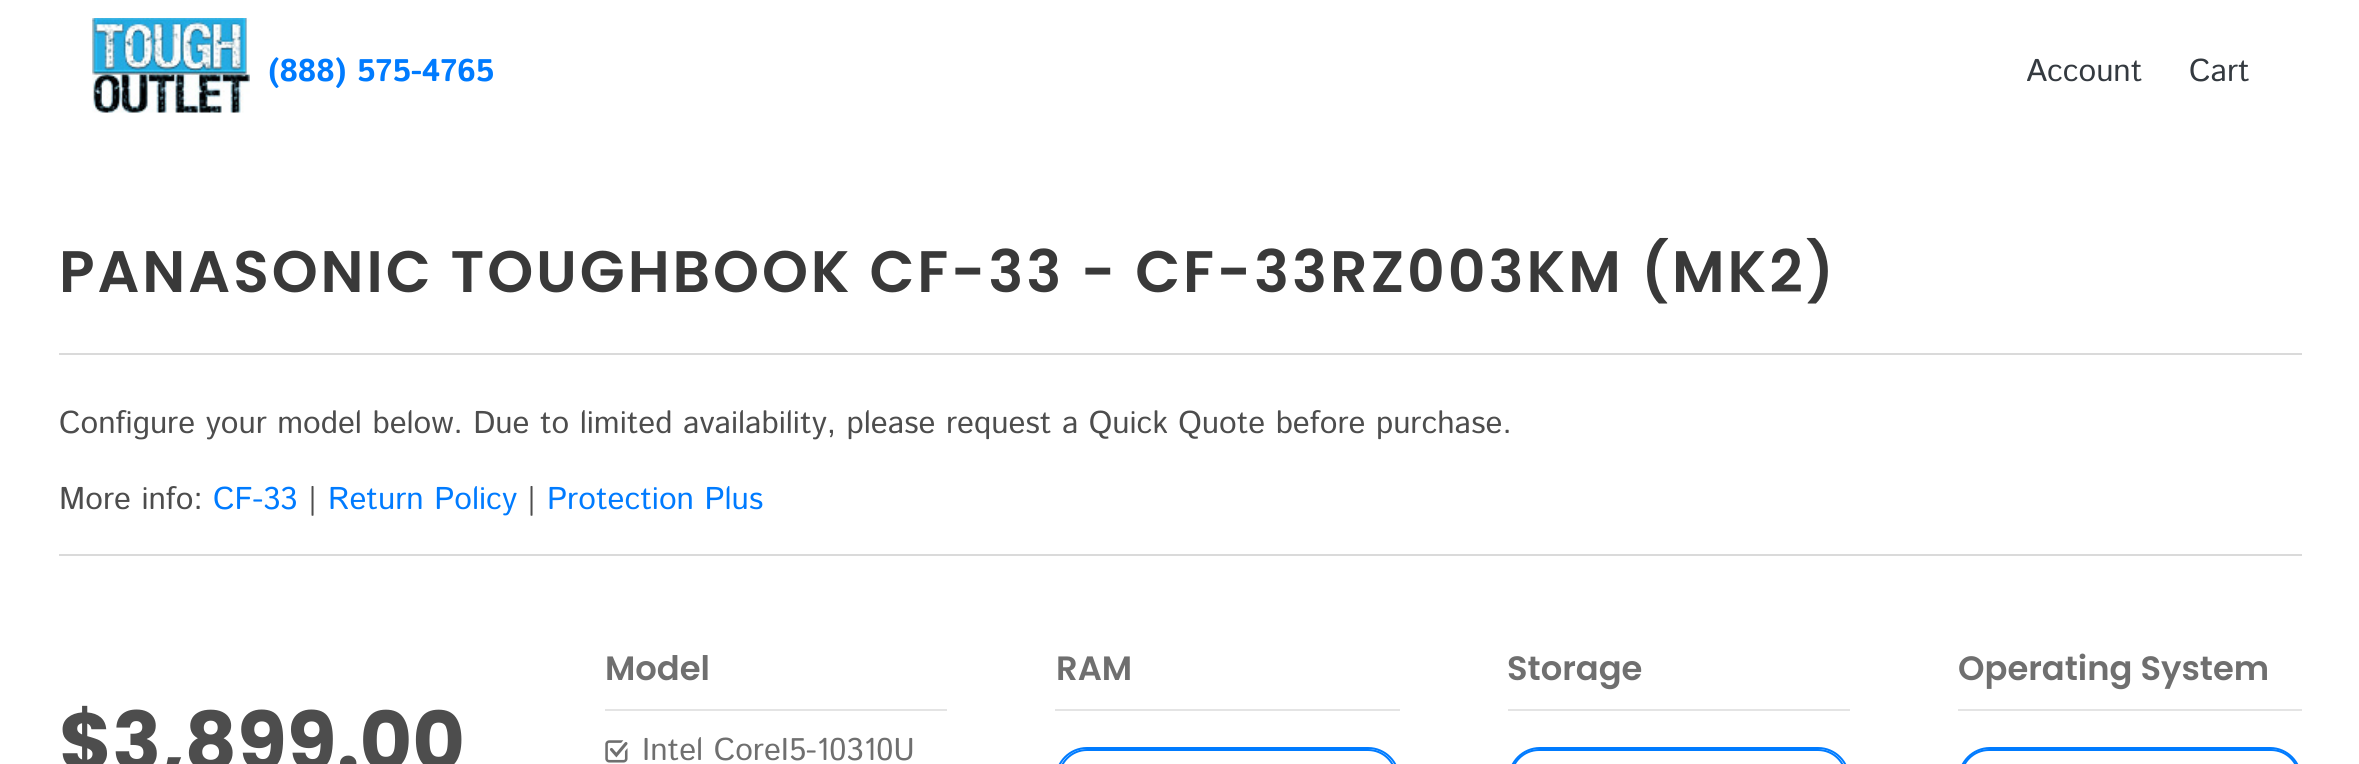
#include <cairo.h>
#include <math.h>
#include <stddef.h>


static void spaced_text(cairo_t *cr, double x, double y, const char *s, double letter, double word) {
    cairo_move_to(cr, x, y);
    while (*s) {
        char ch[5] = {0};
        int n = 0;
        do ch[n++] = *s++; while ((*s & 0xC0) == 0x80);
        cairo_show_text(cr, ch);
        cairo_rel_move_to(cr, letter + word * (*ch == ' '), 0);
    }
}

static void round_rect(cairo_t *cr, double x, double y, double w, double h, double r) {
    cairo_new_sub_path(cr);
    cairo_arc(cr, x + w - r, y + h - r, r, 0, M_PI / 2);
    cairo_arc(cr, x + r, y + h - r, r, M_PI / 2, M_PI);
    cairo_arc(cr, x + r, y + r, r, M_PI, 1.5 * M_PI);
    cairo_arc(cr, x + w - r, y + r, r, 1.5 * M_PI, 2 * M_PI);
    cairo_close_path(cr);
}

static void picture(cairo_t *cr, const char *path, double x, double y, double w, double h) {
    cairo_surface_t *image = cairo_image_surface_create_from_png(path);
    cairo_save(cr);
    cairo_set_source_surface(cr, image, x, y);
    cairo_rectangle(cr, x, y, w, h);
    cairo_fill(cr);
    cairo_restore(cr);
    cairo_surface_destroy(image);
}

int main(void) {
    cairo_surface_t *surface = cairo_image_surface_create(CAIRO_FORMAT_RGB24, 2359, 764);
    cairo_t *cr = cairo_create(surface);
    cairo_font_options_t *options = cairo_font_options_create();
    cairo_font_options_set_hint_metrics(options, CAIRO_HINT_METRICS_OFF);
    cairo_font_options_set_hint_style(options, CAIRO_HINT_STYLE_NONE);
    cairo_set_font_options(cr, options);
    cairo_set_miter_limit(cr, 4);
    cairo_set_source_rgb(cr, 1, 1, 1);
    cairo_paint(cr);
    picture(cr, "img1.png", 92, 18, 158, 95);
    cairo_select_font_face(cr, "Istok Web", CAIRO_FONT_SLANT_NORMAL, CAIRO_FONT_WEIGHT_BOLD);
    cairo_set_font_size(cr, 31.5);
    cairo_set_source_rgb(cr, 0, 0.482, 1);
    cairo_move_to(cr, 268, 81);
    cairo_show_text(cr, "(888) 575-4765");
    cairo_select_font_face(cr, "Istok Web", CAIRO_FONT_SLANT_NORMAL, CAIRO_FONT_WEIGHT_NORMAL);
    cairo_set_source_rgb(cr, 0.204, 0.227, 0.251);
    cairo_move_to(cr, 2026, 81);
    cairo_show_text(cr, "Account");
    cairo_move_to(cr, 2189, 81);
    cairo_show_text(cr, "Cart");
    cairo_set_source_rgb(cr, 0.855, 0.855, 0.855);
    cairo_rectangle(cr, 59, 353, 2243, 2);
    cairo_fill(cr);
    cairo_select_font_face(cr, "Poppins SemiBold", CAIRO_FONT_SLANT_NORMAL, CAIRO_FONT_WEIGHT_NORMAL);
    cairo_set_font_size(cr, 58.5);
    cairo_set_source_rgb(cr, 0.224, 0.224, 0.224);
    spaced_text(cr, 59, 292, "PANASONIC TOUGHBOOK CF-33 - CF-33RZ003KM (MK2)", 2.95, 0);
    cairo_set_source_rgb(cr, 0.855, 0.855, 0.855);
    cairo_rectangle(cr, 59, 554, 2243, 2);
    cairo_fill(cr);
    cairo_select_font_face(cr, "Istok Web", CAIRO_FONT_SLANT_NORMAL, CAIRO_FONT_WEIGHT_NORMAL);
    cairo_set_font_size(cr, 31.5);
    cairo_set_source_rgb(cr, 0.302, 0.302, 0.302);
    cairo_move_to(cr, 59, 433);
    cairo_show_text(cr, "Configure your model below. Due to limited availability, please request a Quick Quote before purchase.");
    cairo_move_to(cr, 59, 509);
    cairo_show_text(cr, "More info:");
    cairo_set_source_rgb(cr, 0, 0.482, 1);
    cairo_move_to(cr, 213, 509);
    cairo_show_text(cr, "CF-33");
    cairo_set_source_rgb(cr, 0.302, 0.302, 0.302);
    cairo_move_to(cr, 308, 509);
    cairo_show_text(cr, "|");
    cairo_set_source_rgb(cr, 0, 0.482, 1);
    cairo_move_to(cr, 328, 509);
    cairo_show_text(cr, "Return Policy");
    cairo_set_source_rgb(cr, 0.302, 0.302, 0.302);
    cairo_move_to(cr, 527, 509);
    cairo_show_text(cr, "|");
    cairo_set_source_rgb(cr, 0, 0.482, 1);
    cairo_move_to(cr, 547, 509);
    cairo_show_text(cr, "Protection Plus");
    cairo_select_font_face(cr, "Poppins", CAIRO_FONT_SLANT_NORMAL, CAIRO_FONT_WEIGHT_BOLD);
    cairo_set_font_size(cr, 81);
    cairo_set_source_rgb(cr, 0.302, 0.302, 0.302);
    cairo_move_to(cr, 59, 770);
    cairo_show_text(cr, "$3,899.00");
    cairo_set_source_rgb(cr, 0.894, 0.894, 0.894);
    cairo_rectangle(cr, 605, 709, 342, 2);
    cairo_fill(cr);
    cairo_select_font_face(cr, "Poppins SemiBold", CAIRO_FONT_SLANT_NORMAL, CAIRO_FONT_WEIGHT_NORMAL);
    cairo_set_font_size(cr, 33.75);
    cairo_set_source_rgb(cr, 0.435, 0.435, 0.435);
    cairo_move_to(cr, 605, 680);
    cairo_show_text(cr, "Model");
    picture(cr, "img2.png", 605, 740, 23, 23);
    cairo_select_font_face(cr, "Istok Web", CAIRO_FONT_SLANT_NORMAL, CAIRO_FONT_WEIGHT_NORMAL);
    cairo_set_font_size(cr, 31.5);
    cairo_move_to(cr, 642, 760);
    cairo_show_text(cr, "Intel CoreI5-10310U");
    cairo_set_source_rgb(cr, 0.894, 0.894, 0.894);
    cairo_rectangle(cr, 1055, 709, 345, 2);
    cairo_fill(cr);
    cairo_select_font_face(cr, "Poppins SemiBold", CAIRO_FONT_SLANT_NORMAL, CAIRO_FONT_WEIGHT_NORMAL);
    cairo_set_font_size(cr, 33.75);
    cairo_set_source_rgb(cr, 0.435, 0.435, 0.435);
    cairo_move_to(cr, 1056, 680);
    cairo_show_text(cr, "RAM");
    round_rect(cr, 1059, 750, 337, 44, 28);
    cairo_set_source_rgb(cr, 0, 0.482, 1);
    cairo_stroke(cr);
    round_rect(cr, 1056, 748, 343, 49, 31);
    cairo_stroke(cr);
    cairo_set_source_rgb(cr, 0.894, 0.894, 0.894);
    cairo_rectangle(cr, 1508, 709, 342, 2);
    cairo_fill(cr);
    cairo_set_source_rgb(cr, 0.435, 0.435, 0.435);
    cairo_move_to(cr, 1507, 680);
    cairo_show_text(cr, "Storage");
    round_rect(cr, 1511, 750, 335, 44, 28);
    cairo_set_source_rgb(cr, 0, 0.482, 1);
    cairo_stroke(cr);
    round_rect(cr, 1509, 748, 340, 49, 31);
    cairo_stroke(cr);
    cairo_set_source_rgb(cr, 0.894, 0.894, 0.894);
    cairo_rectangle(cr, 1958, 709, 344, 2);
    cairo_fill(cr);
    cairo_set_source_rgb(cr, 0.435, 0.435, 0.435);
    cairo_move_to(cr, 1958, 680);
    cairo_show_text(cr, "Operating System");
    round_rect(cr, 1961, 750, 338, 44, 28);
    cairo_set_source_rgb(cr, 0, 0.482, 1);
    cairo_stroke(cr);
    round_rect(cr, 1959, 748, 342, 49, 31);
    cairo_stroke(cr);
    cairo_surface_write_to_png(surface, "page.png");
    cairo_font_options_destroy(options);
    cairo_destroy(cr);
    cairo_surface_destroy(surface);
    return 0;
}
